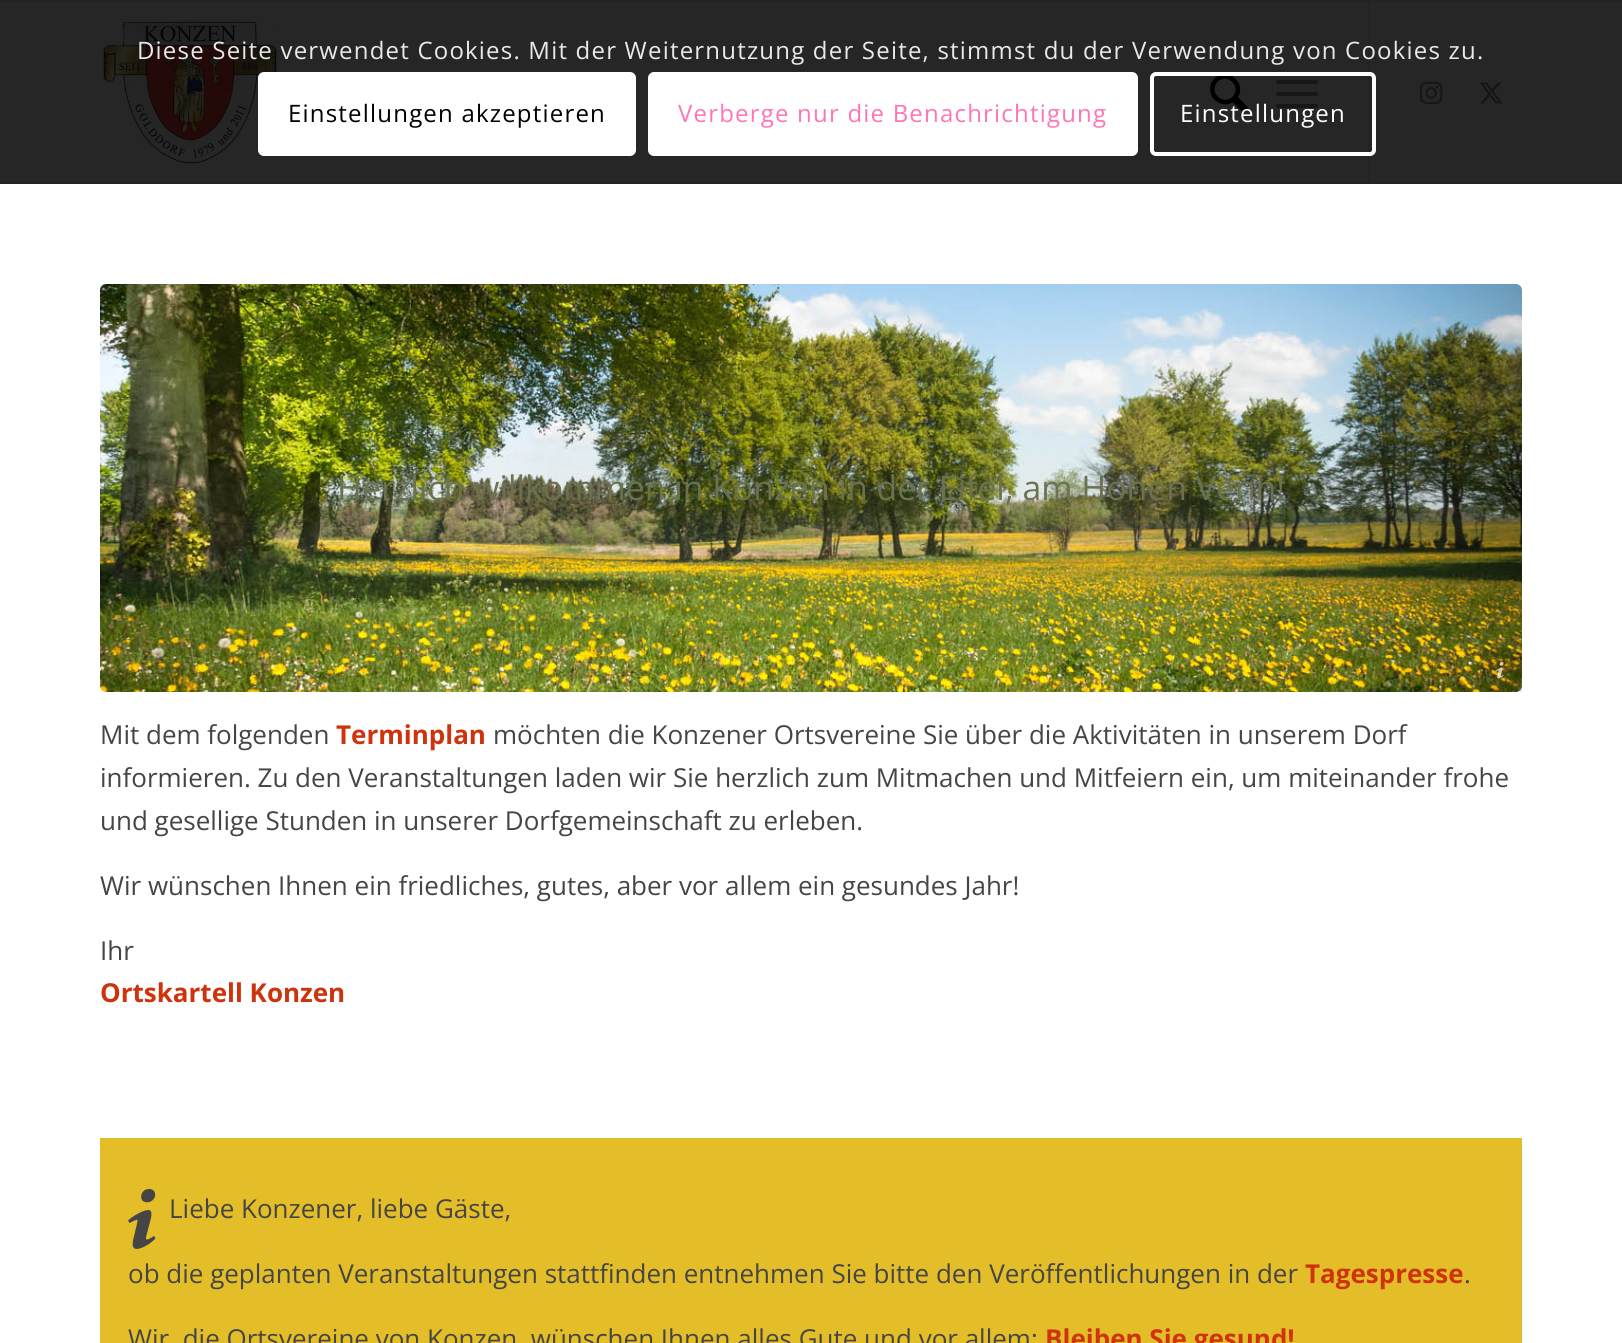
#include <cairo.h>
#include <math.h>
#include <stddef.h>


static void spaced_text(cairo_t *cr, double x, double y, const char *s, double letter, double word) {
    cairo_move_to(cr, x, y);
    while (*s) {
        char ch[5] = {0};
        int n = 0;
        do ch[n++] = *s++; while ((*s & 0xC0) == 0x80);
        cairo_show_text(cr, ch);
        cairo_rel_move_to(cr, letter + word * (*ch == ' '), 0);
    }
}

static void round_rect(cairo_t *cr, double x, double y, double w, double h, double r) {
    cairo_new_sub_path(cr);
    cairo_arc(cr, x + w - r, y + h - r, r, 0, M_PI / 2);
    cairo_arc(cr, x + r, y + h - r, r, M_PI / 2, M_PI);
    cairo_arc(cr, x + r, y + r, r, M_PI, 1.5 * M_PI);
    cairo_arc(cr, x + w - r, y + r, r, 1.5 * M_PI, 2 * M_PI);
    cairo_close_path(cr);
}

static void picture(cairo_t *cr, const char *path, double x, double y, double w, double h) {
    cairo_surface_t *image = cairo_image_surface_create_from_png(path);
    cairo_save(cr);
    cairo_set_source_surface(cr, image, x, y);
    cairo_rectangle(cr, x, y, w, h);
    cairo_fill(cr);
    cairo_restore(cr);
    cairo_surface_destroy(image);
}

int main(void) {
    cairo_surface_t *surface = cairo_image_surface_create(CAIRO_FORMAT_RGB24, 1622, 1343);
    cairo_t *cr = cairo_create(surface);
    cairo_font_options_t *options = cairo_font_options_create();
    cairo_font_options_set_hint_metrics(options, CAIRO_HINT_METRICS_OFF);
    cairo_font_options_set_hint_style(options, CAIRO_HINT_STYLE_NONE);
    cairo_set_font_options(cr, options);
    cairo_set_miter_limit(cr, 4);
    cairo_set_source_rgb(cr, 1, 1, 1);
    cairo_paint(cr);
    cairo_set_source_rgb(cr, 0.149, 0.149, 0.149);
    cairo_rectangle(cr, 0, 2, 1622, 180);
    cairo_fill(cr);
    picture(cr, "img1.png", 100, 19, 179, 146);
    cairo_set_source_rgb(cr, 0.137, 0.137, 0.137);
    cairo_rectangle(cr, 1368, 2, 2, 180);
    cairo_fill(cr);
    cairo_select_font_face(cr, "Open Sans", CAIRO_FONT_SLANT_NORMAL, CAIRO_FONT_WEIGHT_NORMAL);
    cairo_set_font_size(cr, 24);
    cairo_set_source_rgb(cr, 0.914, 0.914, 0.914);
    spaced_text(cr, 137, 59, "Diese Seite verwendet Cookies. Mit der Weiternutzung der Seite, stimmst du der Verwendung von Cookies zu.", 1.2, 0);
    cairo_set_source_rgb(cr, 1, 1, 1);
    round_rect(cr, 258, 72, 378, 84, 6);
    cairo_fill(cr);
    cairo_set_source_rgb(cr, 0, 0, 0);
    spaced_text(cr, 288, 122, "Einstellungen akzeptieren", 1.2, 0);
    cairo_set_source_rgb(cr, 1, 1, 1);
    round_rect(cr, 650, 74, 486, 80, 4);
    cairo_fill_preserve(cr);
    cairo_set_line_width(cr, 4);
    cairo_stroke(cr);
    cairo_set_source_rgb(cr, 1, 0.459, 0.71);
    spaced_text(cr, 678, 122, "Verberge nur die Benachrichtigung", 1.2, 0);
    picture(cr, "img2.png", 1210, 76, 38, 37);
    cairo_set_source_rgb(cr, 0.09, 0.09, 0.09);
    round_rect(cr, 1276, 92, 42, 4, 2);
    cairo_fill(cr);
    round_rect(cr, 1276, 80, 42, 4, 2);
    cairo_fill(cr);
    round_rect(cr, 1276, 104, 42, 4, 2);
    cairo_fill(cr);
    round_rect(cr, 1152, 74, 222, 80, 4);
    cairo_set_source_rgb(cr, 1, 1, 1);
    cairo_stroke(cr);
    spaced_text(cr, 1180, 122, "Einstellungen", 1.2, 0);
    cairo_set_source_rgb(cr, 0.137, 0.137, 0.137);
    cairo_rectangle(cr, 0, 0, 1622, 2);
    cairo_fill(cr);
    cairo_rectangle(cr, 0, 182, 1622, 2);
    cairo_fill(cr);
    picture(cr, "img3.png", 1420, 81, 23, 24);
    picture(cr, "img4.png", 1479, 82, 24, 22);
    picture(cr, "img5.png", 100, 284, 1422, 408);
    cairo_set_font_size(cr, 33.8);
    cairo_set_source_rgb(cr, 0.424, 0.447, 0.31);
    cairo_move_to(cr, 337, 500);
    cairo_show_text(cr, "Herzlich willkommen in Konzen in der Eifel, am Hohen Venn!");
    cairo_set_source_rgba(cr, 0, 0, 0, 0.1);
    cairo_rectangle(cr, 1480, 650, 42, 42);
    cairo_fill(cr);
    picture(cr, "img6.png", 1496, 661, 8, 18);
    cairo_set_font_size(cr, 26);
    cairo_set_source_rgb(cr, 0.271, 0.271, 0.271);
    cairo_move_to(cr, 100, 744);
    cairo_show_text(cr, "Mit dem folgenden");
    cairo_select_font_face(cr, "Open Sans", CAIRO_FONT_SLANT_NORMAL, CAIRO_FONT_WEIGHT_BOLD);
    cairo_set_source_rgb(cr, 0.812, 0.2, 0.047);
    cairo_move_to(cr, 336, 744);
    cairo_show_text(cr, "Terminplan");
    cairo_select_font_face(cr, "Open Sans", CAIRO_FONT_SLANT_NORMAL, CAIRO_FONT_WEIGHT_NORMAL);
    cairo_set_source_rgb(cr, 0.271, 0.271, 0.271);
    cairo_move_to(cr, 493, 744);
    cairo_show_text(cr, "möchten die Konzener Ortsvereine Sie über die Aktivitäten in unserem Dorf");
    cairo_move_to(cr, 100, 787);
    cairo_show_text(cr, "informieren. Zu den Veranstaltungen laden wir Sie herzlich zum Mitmachen und Mitfeiern ein, um miteinander frohe");
    cairo_move_to(cr, 100, 830);
    cairo_show_text(cr, "und gesellige Stunden in unserer Dorfgemeinschaft zu erleben.");
    cairo_move_to(cr, 100, 895);
    cairo_show_text(cr, "Wir wünschen Ihnen ein friedliches, gutes, aber vor allem ein gesundes Jahr!");
    cairo_move_to(cr, 100, 960);
    cairo_show_text(cr, "Ihr");
    cairo_select_font_face(cr, "Open Sans", CAIRO_FONT_SLANT_NORMAL, CAIRO_FONT_WEIGHT_BOLD);
    cairo_set_source_rgb(cr, 0.812, 0.2, 0.047);
    cairo_move_to(cr, 100, 1002);
    cairo_show_text(cr, "Ortskartell Konzen");
    cairo_set_source_rgb(cr, 0.89, 0.745, 0.161);
    cairo_rectangle(cr, 100, 1138, 1422, 205);
    cairo_fill(cr);
    picture(cr, "img7.png", 128, 1189, 28, 60);
    cairo_select_font_face(cr, "Open Sans", CAIRO_FONT_SLANT_NORMAL, CAIRO_FONT_WEIGHT_NORMAL);
    cairo_set_source_rgb(cr, 0.271, 0.271, 0.271);
    cairo_move_to(cr, 169, 1218);
    cairo_show_text(cr, "Liebe Konzener, liebe Gäste,");
    cairo_move_to(cr, 128, 1283);
    cairo_show_text(cr, "ob die geplanten Veranstaltungen stattfinden entnehmen Sie bitte den Veröffentlichungen in der");
    cairo_select_font_face(cr, "Open Sans", CAIRO_FONT_SLANT_NORMAL, CAIRO_FONT_WEIGHT_BOLD);
    cairo_set_source_rgb(cr, 0.812, 0.2, 0.047);
    cairo_move_to(cr, 1305, 1283);
    cairo_show_text(cr, "Tagespresse");
    cairo_select_font_face(cr, "Open Sans", CAIRO_FONT_SLANT_NORMAL, CAIRO_FONT_WEIGHT_NORMAL);
    cairo_set_source_rgb(cr, 0.271, 0.271, 0.271);
    cairo_move_to(cr, 1464, 1283);
    cairo_show_text(cr, ".");
    cairo_move_to(cr, 128, 1348);
    cairo_show_text(cr, "Wir, die Ortsvereine von Konzen, wünschen Ihnen alles Gute und vor allem:");
    cairo_select_font_face(cr, "Open Sans", CAIRO_FONT_SLANT_NORMAL, CAIRO_FONT_WEIGHT_BOLD);
    cairo_set_source_rgb(cr, 0.812, 0.2, 0.047);
    cairo_move_to(cr, 1045, 1348);
    cairo_show_text(cr, "Bleiben Sie gesund!");
    cairo_surface_write_to_png(surface, "page.png");
    cairo_font_options_destroy(options);
    cairo_destroy(cr);
    cairo_surface_destroy(surface);
    return 0;
}
